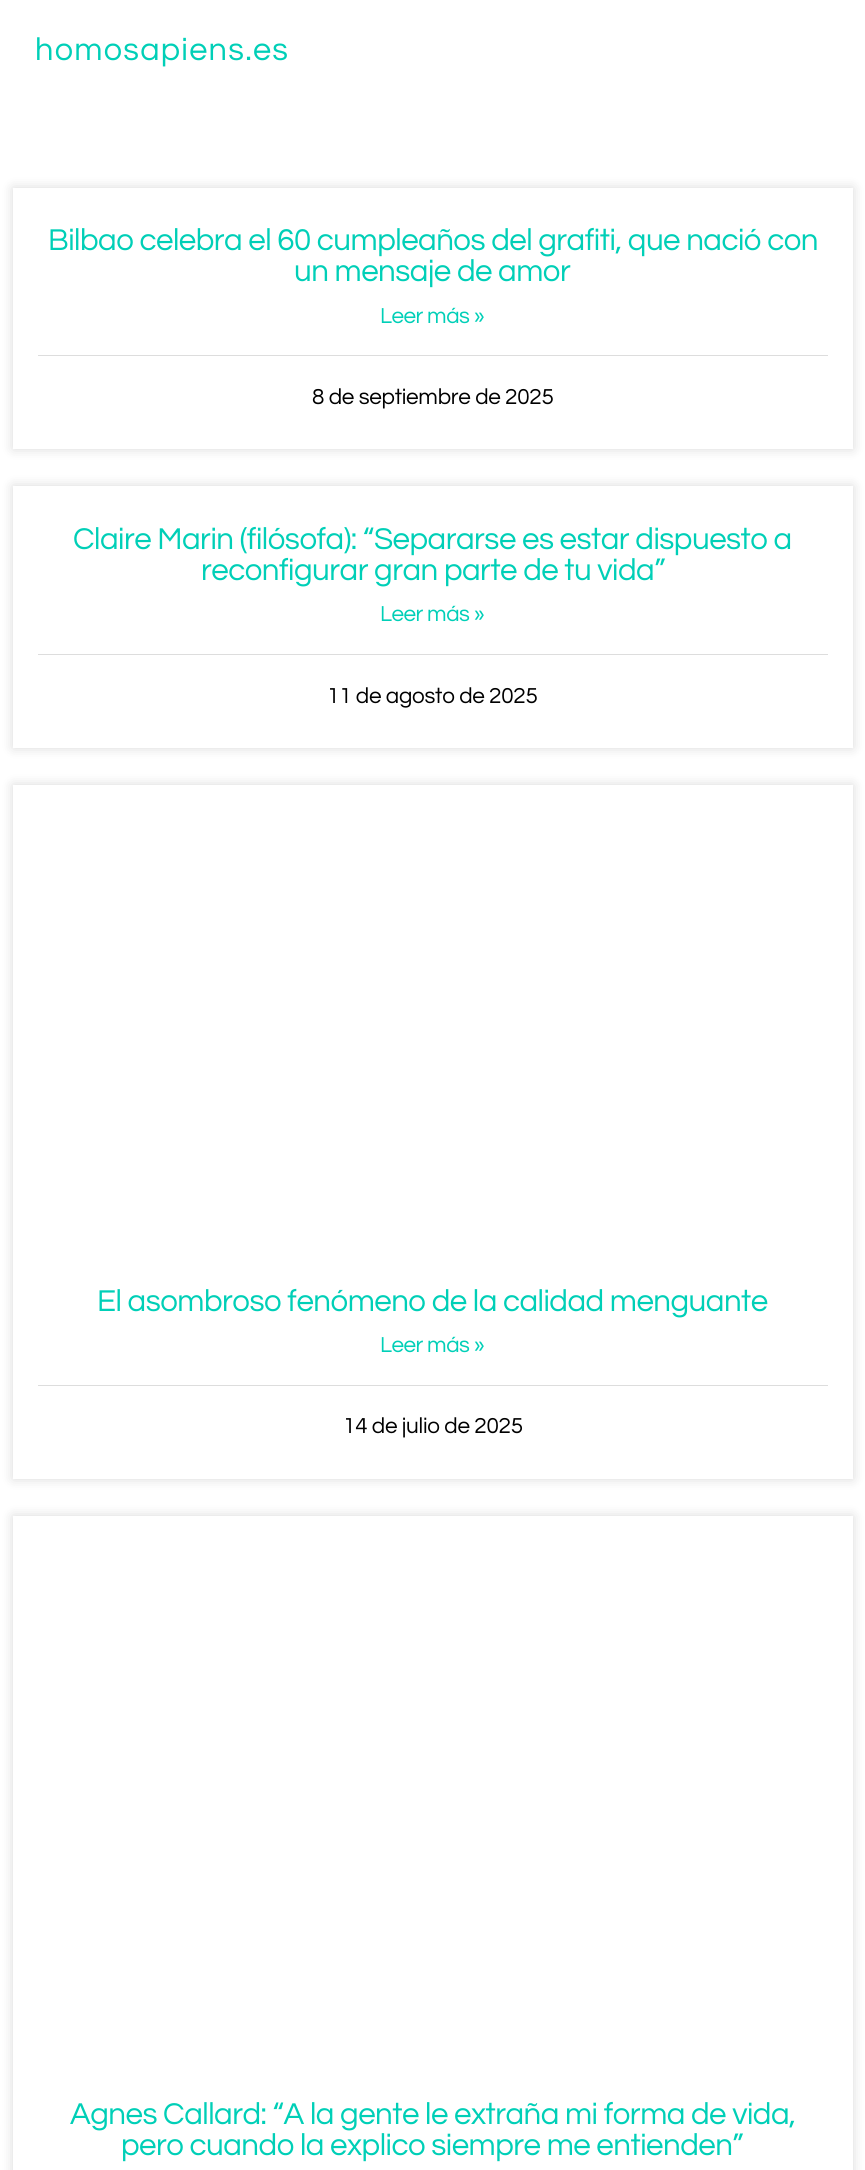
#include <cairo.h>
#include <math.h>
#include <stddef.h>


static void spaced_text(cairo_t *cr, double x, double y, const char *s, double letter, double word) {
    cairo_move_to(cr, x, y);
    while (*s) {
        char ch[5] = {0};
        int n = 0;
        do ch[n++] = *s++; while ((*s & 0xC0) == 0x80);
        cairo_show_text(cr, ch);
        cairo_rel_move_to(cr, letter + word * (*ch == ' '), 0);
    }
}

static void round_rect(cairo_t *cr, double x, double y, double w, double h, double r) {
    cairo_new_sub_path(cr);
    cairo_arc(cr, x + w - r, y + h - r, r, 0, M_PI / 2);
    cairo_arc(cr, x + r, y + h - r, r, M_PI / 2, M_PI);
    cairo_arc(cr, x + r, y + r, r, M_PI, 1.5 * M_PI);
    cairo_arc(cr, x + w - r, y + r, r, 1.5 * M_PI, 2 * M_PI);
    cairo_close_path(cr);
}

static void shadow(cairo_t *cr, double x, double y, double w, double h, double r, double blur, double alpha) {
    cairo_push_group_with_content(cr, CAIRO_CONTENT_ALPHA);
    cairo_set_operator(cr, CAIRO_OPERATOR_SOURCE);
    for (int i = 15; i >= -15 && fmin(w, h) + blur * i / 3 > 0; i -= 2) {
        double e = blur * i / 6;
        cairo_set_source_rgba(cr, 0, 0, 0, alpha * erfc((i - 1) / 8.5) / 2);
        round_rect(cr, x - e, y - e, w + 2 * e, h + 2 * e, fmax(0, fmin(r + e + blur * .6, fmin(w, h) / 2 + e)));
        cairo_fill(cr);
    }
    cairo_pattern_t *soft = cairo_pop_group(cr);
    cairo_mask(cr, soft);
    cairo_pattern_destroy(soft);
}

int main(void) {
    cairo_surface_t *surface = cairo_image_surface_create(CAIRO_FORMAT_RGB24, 865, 2170);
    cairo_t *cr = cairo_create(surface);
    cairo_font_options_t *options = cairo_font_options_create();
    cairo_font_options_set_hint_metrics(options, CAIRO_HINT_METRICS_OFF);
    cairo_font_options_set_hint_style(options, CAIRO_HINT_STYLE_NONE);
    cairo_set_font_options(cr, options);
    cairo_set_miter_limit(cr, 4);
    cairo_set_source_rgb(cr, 1, 1, 1);
    cairo_paint(cr);
    cairo_select_font_face(cr, "Questrial", CAIRO_FONT_SLANT_NORMAL, CAIRO_FONT_WEIGHT_NORMAL);
    cairo_set_font_size(cr, 32.5);
    cairo_set_source_rgb(cr, 0, 0.812, 0.718);
    spaced_text(cr, 35, 60, "homosapiens.es", 1.25, 0);
    cairo_save(cr);
    cairo_set_fill_rule(cr, CAIRO_FILL_RULE_EVEN_ODD);
    cairo_new_path(cr);
    cairo_move_to(cr, 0, 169);
    cairo_line_to(cr, 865, 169);
    cairo_line_to(cr, 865, 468);
    cairo_line_to(cr, 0, 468);
    cairo_close_path(cr);
    cairo_move_to(cr, 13, 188);
    cairo_line_to(cr, 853, 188);
    cairo_line_to(cr, 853, 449);
    cairo_line_to(cr, 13, 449);
    cairo_close_path(cr);
    cairo_clip(cr);
    cairo_set_source_rgb(cr, 0, 0, 0);
    shadow(cr, 13, 188, 840, 261, 0, 6, 0.15);
    cairo_restore(cr);
    cairo_set_source_rgb(cr, 0.867, 0.867, 0.867);
    cairo_rectangle(cr, 38, 355, 790, 1);
    cairo_fill(cr);
    cairo_set_font_size(cr, 31.25);
    cairo_set_source_rgb(cr, 0, 0.812, 0.718);
    spaced_text(cr, 48, 250, "Bilbao celebra el 60 cumpleaños del grafiti, que nació con", -0.5, 0);
    spaced_text(cr, 294, 281, "un mensaje de amor", -0.5, 0);
    cairo_set_font_size(cr, 22.5);
    spaced_text(cr, 380, 323, "Leer más »", -0.5, 0);
    cairo_set_source_rgb(cr, 0, 0, 0);
    spaced_text(cr, 312, 404, "8 de septiembre de 2025", -0.25, 0);
    cairo_save(cr);
    cairo_set_fill_rule(cr, CAIRO_FILL_RULE_EVEN_ODD);
    cairo_new_path(cr);
    cairo_move_to(cr, 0, 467);
    cairo_line_to(cr, 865, 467);
    cairo_line_to(cr, 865, 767);
    cairo_line_to(cr, 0, 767);
    cairo_close_path(cr);
    cairo_move_to(cr, 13, 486);
    cairo_line_to(cr, 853, 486);
    cairo_line_to(cr, 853, 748);
    cairo_line_to(cr, 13, 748);
    cairo_close_path(cr);
    cairo_clip(cr);
    cairo_set_source_rgb(cr, 0, 0, 0);
    shadow(cr, 13, 486, 840, 262, 0, 6, 0.15);
    cairo_restore(cr);
    cairo_set_source_rgb(cr, 0.867, 0.867, 0.867);
    cairo_rectangle(cr, 38, 654, 790, 1);
    cairo_fill(cr);
    cairo_set_font_size(cr, 31.25);
    cairo_set_source_rgb(cr, 0, 0.812, 0.718);
    spaced_text(cr, 73, 549, "Claire Marin (filósofa): “Separarse es estar dispuesto a", -0.5, 0);
    spaced_text(cr, 201, 580, "reconfigurar gran parte de tu vida”", -0.5, 0);
    cairo_set_font_size(cr, 22.5);
    spaced_text(cr, 380, 621, "Leer más »", -0.5, 0);
    cairo_set_source_rgb(cr, 0, 0, 0);
    spaced_text(cr, 327, 703, "11 de agosto de 2025", -0.25, 0);
    cairo_save(cr);
    cairo_set_fill_rule(cr, CAIRO_FILL_RULE_EVEN_ODD);
    cairo_new_path(cr);
    cairo_move_to(cr, 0, 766);
    cairo_line_to(cr, 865, 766);
    cairo_line_to(cr, 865, 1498);
    cairo_line_to(cr, 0, 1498);
    cairo_close_path(cr);
    cairo_move_to(cr, 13, 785);
    cairo_line_to(cr, 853, 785);
    cairo_line_to(cr, 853, 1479);
    cairo_line_to(cr, 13, 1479);
    cairo_close_path(cr);
    cairo_clip(cr);
    cairo_set_source_rgb(cr, 0, 0, 0);
    shadow(cr, 13, 785, 840, 694, 0, 6, 0.15);
    cairo_restore(cr);
    cairo_set_source_rgb(cr, 0.867, 0.867, 0.867);
    cairo_rectangle(cr, 38, 1385, 790, 1);
    cairo_fill(cr);
    cairo_set_font_size(cr, 31.25);
    cairo_set_source_rgb(cr, 0, 0.812, 0.718);
    spaced_text(cr, 97, 1311, "El asombroso fenómeno de la calidad menguante", -0.5, 0);
    cairo_set_font_size(cr, 22.5);
    spaced_text(cr, 380, 1352, "Leer más »", -0.5, 0);
    cairo_set_source_rgb(cr, 0, 0, 0);
    spaced_text(cr, 343, 1433, "14 de julio de 2025", -0.25, 0);
    cairo_save(cr);
    cairo_set_fill_rule(cr, CAIRO_FILL_RULE_EVEN_ODD);
    cairo_new_path(cr);
    cairo_move_to(cr, 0, 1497);
    cairo_line_to(cr, 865, 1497);
    cairo_line_to(cr, 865, 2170);
    cairo_line_to(cr, 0, 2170);
    cairo_close_path(cr);
    cairo_move_to(cr, 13, 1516);
    cairo_line_to(cr, 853, 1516);
    cairo_line_to(cr, 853, 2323);
    cairo_line_to(cr, 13, 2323);
    cairo_close_path(cr);
    cairo_clip(cr);
    cairo_set_source_rgb(cr, 0, 0, 0);
    shadow(cr, 13, 1516, 840, 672, 0, 6, 0.15);
    cairo_restore(cr);
    cairo_set_font_size(cr, 31.25);
    cairo_set_source_rgb(cr, 0, 0.812, 0.718);
    spaced_text(cr, 70, 2124, "Agnes Callard: “A la gente le extraña mi forma de vida,", -0.5, 0);
    spaced_text(cr, 121, 2155, "pero cuando la explico siempre me entienden”", -0.5, 0);
    cairo_surface_write_to_png(surface, "page.png");
    cairo_font_options_destroy(options);
    cairo_destroy(cr);
    cairo_surface_destroy(surface);
    return 0;
}
